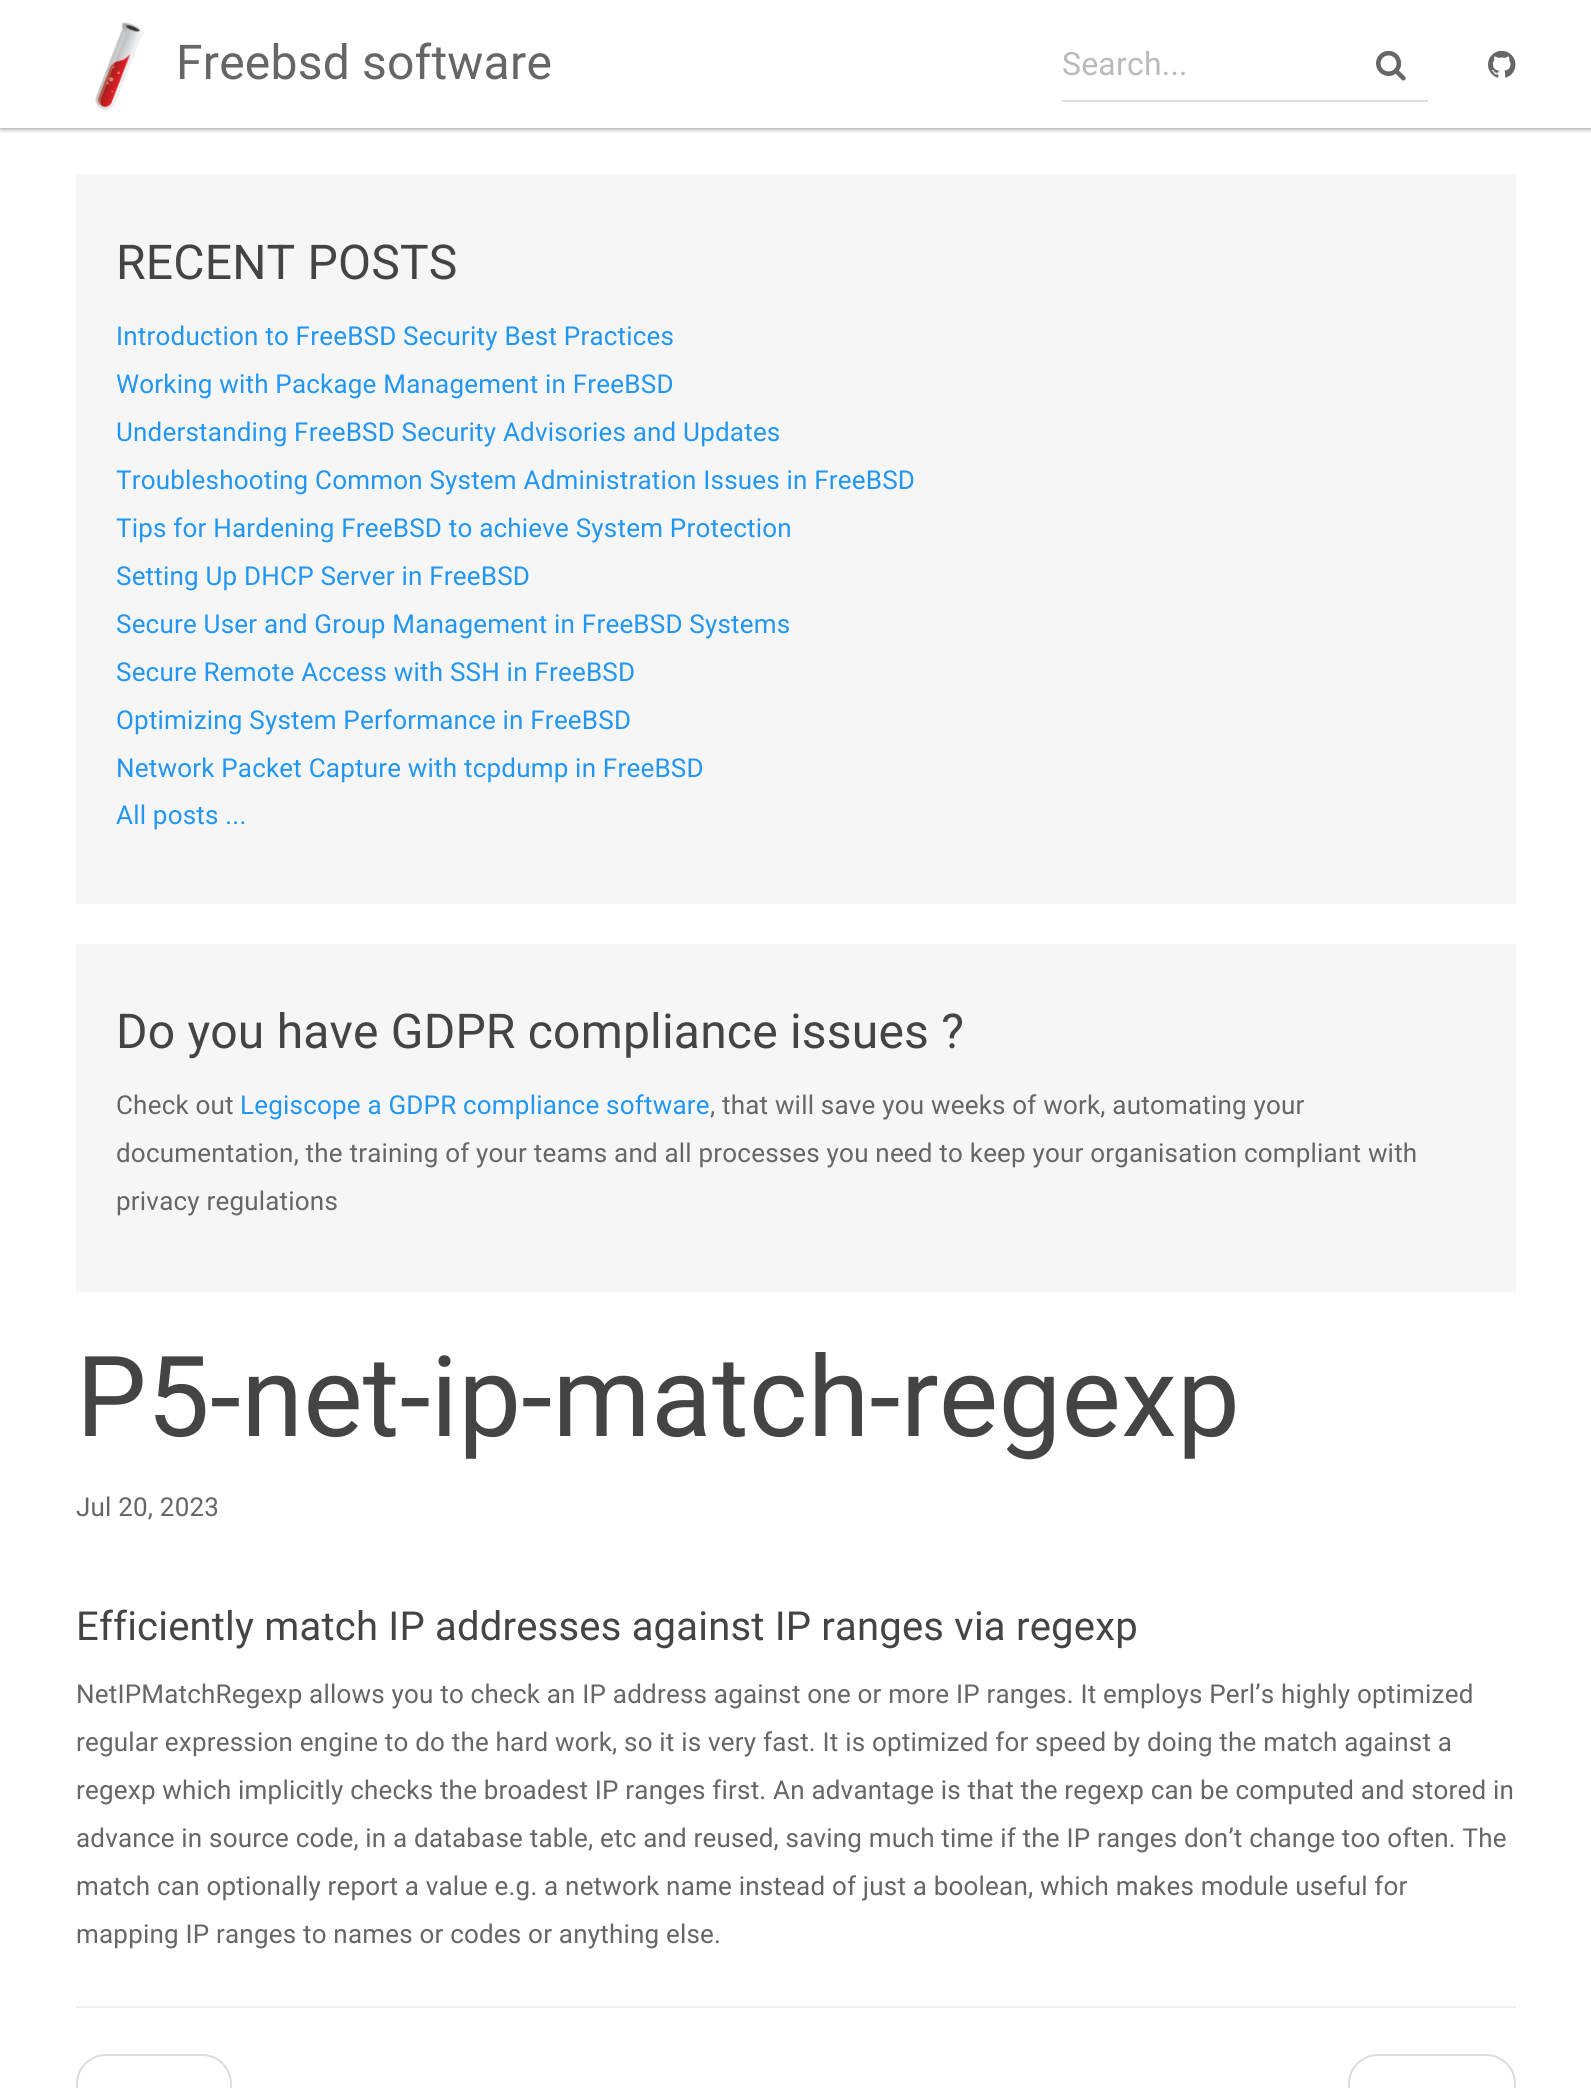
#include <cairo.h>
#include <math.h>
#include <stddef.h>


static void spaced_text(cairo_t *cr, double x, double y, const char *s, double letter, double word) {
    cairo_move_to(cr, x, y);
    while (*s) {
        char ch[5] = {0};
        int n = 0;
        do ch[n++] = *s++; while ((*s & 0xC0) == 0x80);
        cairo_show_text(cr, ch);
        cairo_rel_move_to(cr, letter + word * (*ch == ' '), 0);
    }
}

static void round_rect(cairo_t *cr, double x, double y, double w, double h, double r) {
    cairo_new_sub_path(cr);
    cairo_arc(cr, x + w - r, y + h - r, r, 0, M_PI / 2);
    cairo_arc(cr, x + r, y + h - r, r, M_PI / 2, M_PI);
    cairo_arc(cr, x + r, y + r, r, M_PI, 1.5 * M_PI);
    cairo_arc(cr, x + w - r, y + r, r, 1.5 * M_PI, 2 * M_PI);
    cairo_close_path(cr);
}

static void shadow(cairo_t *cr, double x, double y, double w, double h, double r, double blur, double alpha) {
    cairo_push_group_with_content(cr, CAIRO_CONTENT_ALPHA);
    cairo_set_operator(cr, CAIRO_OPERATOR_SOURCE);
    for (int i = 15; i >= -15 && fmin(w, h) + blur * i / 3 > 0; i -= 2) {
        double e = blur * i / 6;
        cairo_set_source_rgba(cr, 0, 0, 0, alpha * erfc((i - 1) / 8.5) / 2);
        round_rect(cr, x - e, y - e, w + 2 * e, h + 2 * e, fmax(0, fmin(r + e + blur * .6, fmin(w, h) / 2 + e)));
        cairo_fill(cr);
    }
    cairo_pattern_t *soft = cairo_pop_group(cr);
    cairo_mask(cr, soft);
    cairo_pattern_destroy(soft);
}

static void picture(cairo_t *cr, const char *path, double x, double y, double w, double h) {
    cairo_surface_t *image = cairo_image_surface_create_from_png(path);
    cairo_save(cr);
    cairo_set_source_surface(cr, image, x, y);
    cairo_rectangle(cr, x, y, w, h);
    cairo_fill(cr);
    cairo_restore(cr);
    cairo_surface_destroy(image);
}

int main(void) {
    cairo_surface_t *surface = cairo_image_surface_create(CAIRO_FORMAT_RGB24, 1591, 2088);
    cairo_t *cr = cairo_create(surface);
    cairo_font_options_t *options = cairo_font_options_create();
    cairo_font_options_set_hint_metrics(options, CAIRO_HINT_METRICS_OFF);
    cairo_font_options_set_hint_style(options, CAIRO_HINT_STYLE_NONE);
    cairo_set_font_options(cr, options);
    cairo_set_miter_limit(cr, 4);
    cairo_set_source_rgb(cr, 1, 1, 1);
    cairo_paint(cr);
    cairo_save(cr);
    cairo_rectangle(cr, 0, 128, 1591, 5);
    cairo_clip(cr);
    cairo_set_source_rgb(cr, 0, 0, 0);
    shadow(cr, 0, 2, 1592, 128, 0, 2, 0.3);
    cairo_restore(cr);
    picture(cr, "img1.png", 95, 22, 50, 88);
    cairo_select_font_face(cr, "Roboto", CAIRO_FONT_SLANT_NORMAL, CAIRO_FONT_WEIGHT_NORMAL);
    cairo_set_font_size(cr, 48);
    cairo_set_source_rgb(cr, 0.4, 0.4, 0.4);
    spaced_text(cr, 176, 79, "Freebsd software", 0.2, 0);
    cairo_set_source_rgb(cr, 0.867, 0.867, 0.867);
    cairo_rectangle(cr, 1062, 100, 366, 2);
    cairo_fill(cr);
    cairo_set_font_size(cr, 32);
    cairo_set_source_rgb(cr, 0.733, 0.733, 0.733);
    spaced_text(cr, 1062, 75, "Search...", 0.2, 0);
    picture(cr, "img2.png", 1376, 50, 30, 31);
    picture(cr, "img3.png", 1488, 50, 28, 28);
    cairo_set_source_rgb(cr, 0.961, 0.961, 0.961);
    cairo_rectangle(cr, 76, 174, 1440, 730);
    cairo_fill(cr);
    cairo_set_font_size(cr, 48);
    cairo_set_source_rgb(cr, 0.267, 0.267, 0.267);
    spaced_text(cr, 116, 279, "RECENT POSTS", 0.2, 0);
    cairo_set_font_size(cr, 26);
    cairo_set_source_rgb(cr, 0.129, 0.588, 0.953);
    spaced_text(cr, 116, 345, "Introduction to FreeBSD Security Best Practices", 0.2, 0);
    spaced_text(cr, 116, 393, "Working with Package Management in FreeBSD", 0.2, 0);
    spaced_text(cr, 116, 441, "Understanding FreeBSD Security Advisories and Updates", 0.2, 0);
    spaced_text(cr, 116, 489, "Troubleshooting Common System Administration Issues in FreeBSD", 0.2, 0);
    spaced_text(cr, 116, 537, "Tips for Hardening FreeBSD to achieve System Protection", 0.2, 0);
    spaced_text(cr, 116, 585, "Setting Up DHCP Server in FreeBSD", 0.2, 0);
    spaced_text(cr, 116, 633, "Secure User and Group Management in FreeBSD Systems", 0.2, 0);
    spaced_text(cr, 116, 681, "Secure Remote Access with SSH in FreeBSD", 0.2, 0);
    spaced_text(cr, 116, 729, "Optimizing System Performance in FreeBSD", 0.2, 0);
    spaced_text(cr, 116, 777, "Network Packet Capture with tcpdump in FreeBSD", 0.2, 0);
    spaced_text(cr, 116, 824, "All posts ...", 0.2, 0);
    cairo_set_source_rgb(cr, 0.961, 0.961, 0.961);
    cairo_rectangle(cr, 76, 944, 1440, 348);
    cairo_fill(cr);
    cairo_set_font_size(cr, 48);
    cairo_set_source_rgb(cr, 0.267, 0.267, 0.267);
    spaced_text(cr, 116, 1048, "Do you have GDPR compliance issues ?", 0.2, 0);
    cairo_set_font_size(cr, 26);
    cairo_set_source_rgb(cr, 0.4, 0.4, 0.4);
    spaced_text(cr, 116, 1114, "Check out", 0.2, 0);
    cairo_set_source_rgb(cr, 0.129, 0.588, 0.953);
    spaced_text(cr, 240, 1114, "Legiscope a GDPR compliance software", 0.2, 0);
    cairo_set_source_rgb(cr, 0.4, 0.4, 0.4);
    spaced_text(cr, 710, 1114, ", that will save you weeks of work, automating your", 0.2, 0);
    spaced_text(cr, 116, 1162, "documentation, the training of your teams and all processes you need to keep your organisation compliant with", 0.2, 0);
    spaced_text(cr, 116, 1210, "privacy regulations", 0.2, 0);
    cairo_set_font_size(cr, 112);
    cairo_set_source_rgb(cr, 0.267, 0.267, 0.267);
    spaced_text(cr, 76, 1436, "P5-net-ip-match-regexp", 0.2, 0);
    cairo_set_font_size(cr, 26);
    cairo_set_source_rgb(cr, 0.4, 0.4, 0.4);
    spaced_text(cr, 76, 1516, "Jul 20, 2023", 0.2, 0);
    cairo_set_font_size(cr, 40);
    cairo_set_source_rgb(cr, 0.267, 0.267, 0.267);
    spaced_text(cr, 76, 1640, "Efficiently match IP addresses against IP ranges via regexp", 0.2, 0);
    cairo_set_font_size(cr, 26);
    cairo_set_source_rgb(cr, 0.4, 0.4, 0.4);
    spaced_text(cr, 76, 1703, "NetIPMatchRegexp allows you to check an IP address against one or more IP ranges. It employs Perl’s highly optimized", 0.2, 0);
    spaced_text(cr, 76, 1751, "regular expression engine to do the hard work, so it is very fast. It is optimized for speed by doing the match against a", 0.2, 0);
    spaced_text(cr, 76, 1799, "regexp which implicitly checks the broadest IP ranges first. An advantage is that the regexp can be computed and stored in", 0.2, 0);
    spaced_text(cr, 76, 1847, "advance in source code, in a database table, etc and reused, saving much time if the IP ranges don’t change too often. The", 0.2, 0);
    spaced_text(cr, 76, 1895, "match can optionally report a value e.g. a network name instead of just a boolean, which makes module useful for", 0.2, 0);
    spaced_text(cr, 76, 1943, "mapping IP ranges to names or codes or anything else.", 0.2, 0);
    cairo_set_source_rgb(cr, 0.933, 0.933, 0.933);
    cairo_rectangle(cr, 76, 2006, 1440, 2);
    cairo_fill(cr);
    round_rect(cr, 77, 2055, 154, 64, 29);
    cairo_set_source_rgb(cr, 0.867, 0.867, 0.867);
    cairo_stroke(cr);
    round_rect(cr, 1349, 2055, 166, 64, 29);
    cairo_stroke(cr);
    cairo_surface_write_to_png(surface, "page.png");
    cairo_font_options_destroy(options);
    cairo_destroy(cr);
    cairo_surface_destroy(surface);
    return 0;
}
